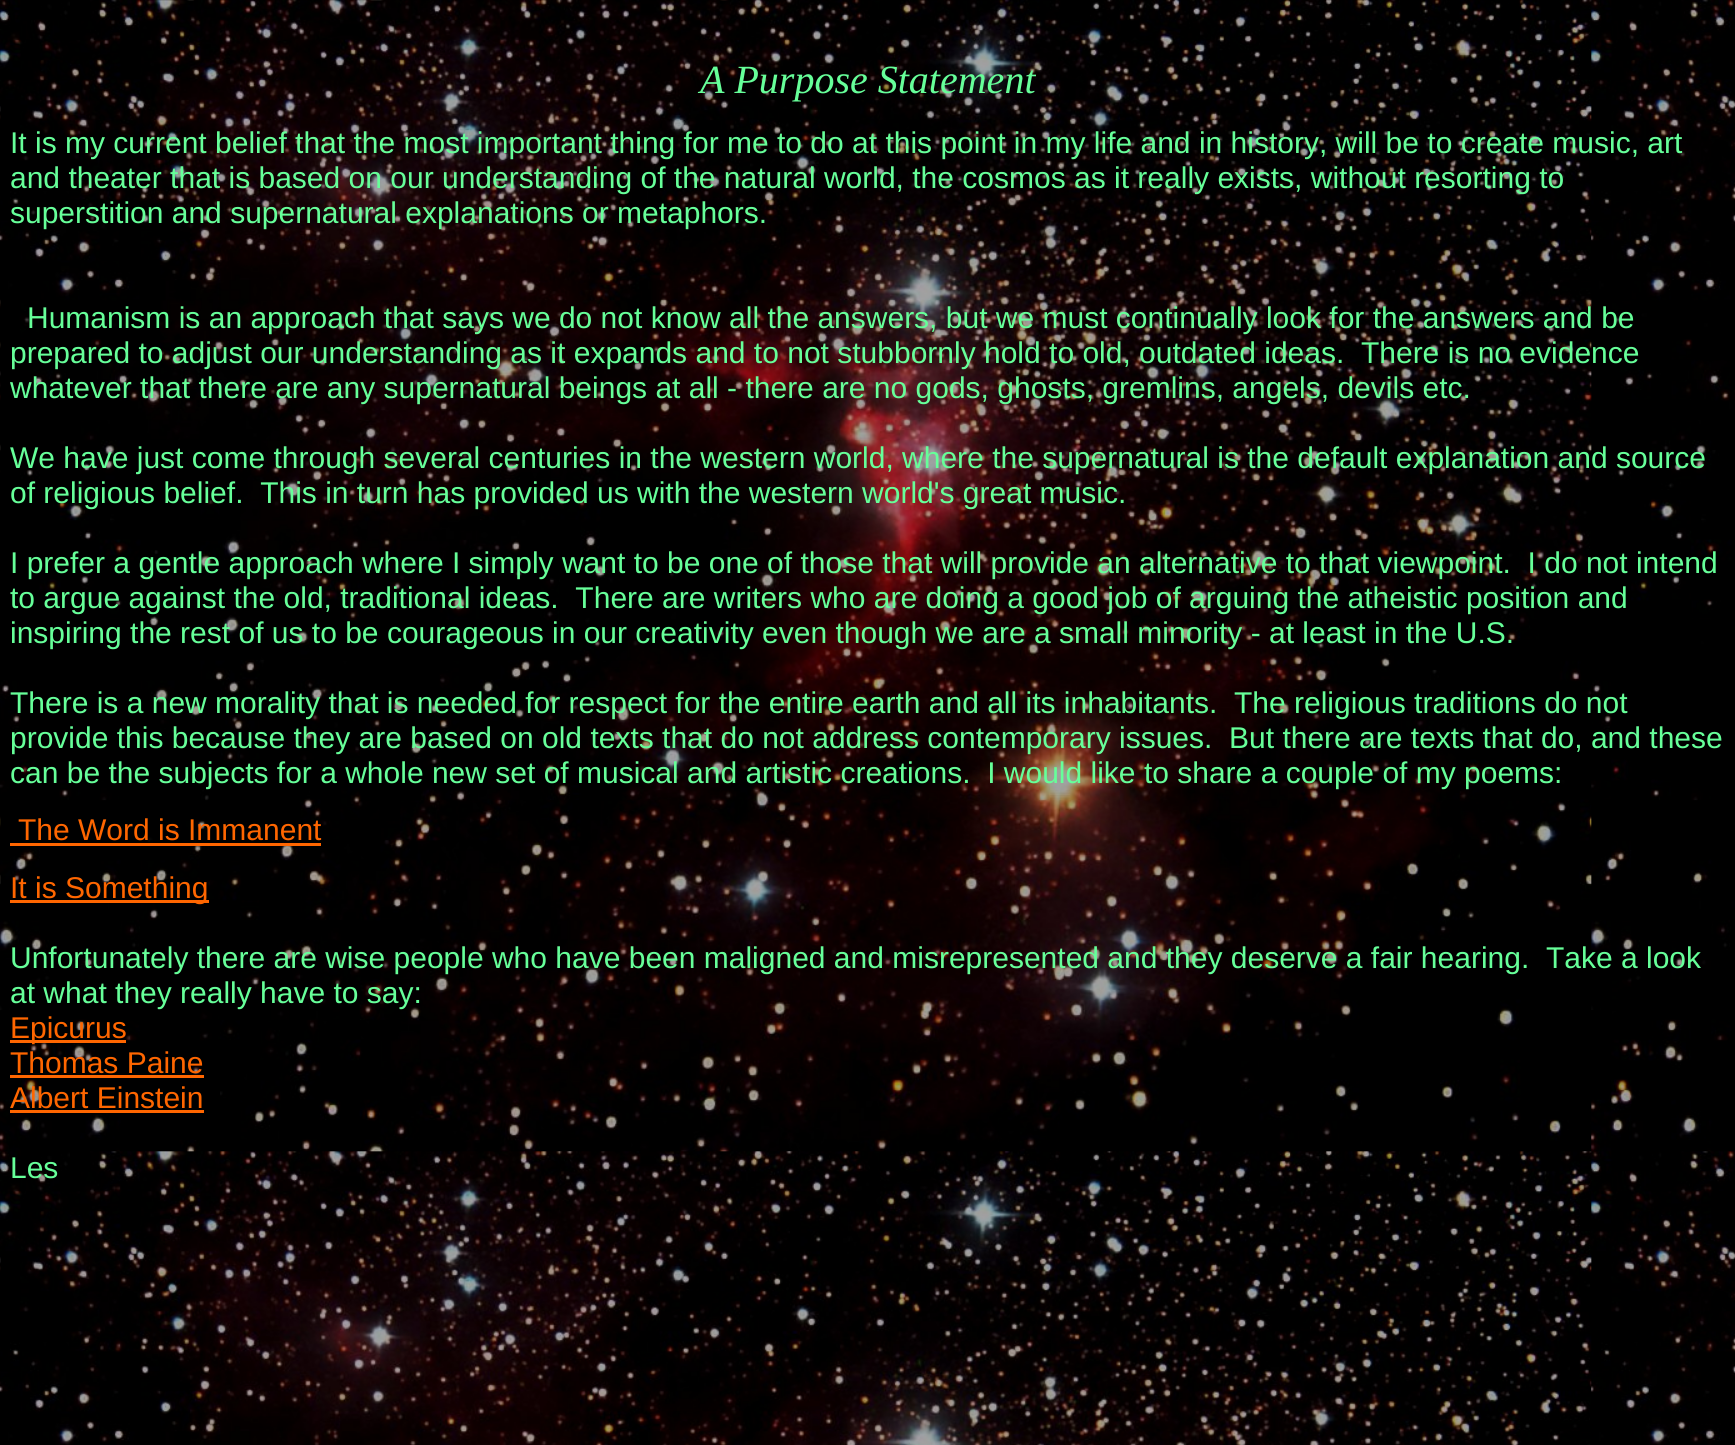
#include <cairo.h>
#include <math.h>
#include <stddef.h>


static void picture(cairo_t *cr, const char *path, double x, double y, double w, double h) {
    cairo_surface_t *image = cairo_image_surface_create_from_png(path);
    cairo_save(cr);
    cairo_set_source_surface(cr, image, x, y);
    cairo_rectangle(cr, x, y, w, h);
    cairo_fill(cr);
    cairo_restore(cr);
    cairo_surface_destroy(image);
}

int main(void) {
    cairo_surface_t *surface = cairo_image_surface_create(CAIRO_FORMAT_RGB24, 1735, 1445);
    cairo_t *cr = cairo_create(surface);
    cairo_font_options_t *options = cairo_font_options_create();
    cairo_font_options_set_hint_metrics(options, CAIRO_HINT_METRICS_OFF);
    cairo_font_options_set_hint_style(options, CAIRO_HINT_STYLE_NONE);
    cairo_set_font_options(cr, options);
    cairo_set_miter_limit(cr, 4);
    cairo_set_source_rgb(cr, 1, 1, 1);
    cairo_paint(cr);
    picture(cr, "img1.png", 0, 0, 1735, 1445);
    cairo_select_font_face(cr, "Liberation Serif", CAIRO_FONT_SLANT_ITALIC, CAIRO_FONT_WEIGHT_NORMAL);
    cairo_set_font_size(cr, 40);
    cairo_set_source_rgb(cr, 0.4, 1, 0.6);
    cairo_move_to(cr, 700, 93);
    cairo_show_text(cr, "A Purpose Statement");
    cairo_select_font_face(cr, "Liberation Sans", CAIRO_FONT_SLANT_NORMAL, CAIRO_FONT_WEIGHT_NORMAL);
    cairo_set_font_size(cr, 30);
    cairo_move_to(cr, 10, 153);
    cairo_show_text(cr, "It is my current belief that the most important thing for me to do at this point in my life and in history, will be to create music, art");
    cairo_move_to(cr, 10, 188);
    cairo_show_text(cr, "and theater that is based on our understanding of the natural world, the cosmos as it really exists, without resorting to");
    cairo_move_to(cr, 10, 223);
    cairo_show_text(cr, "superstition and supernatural explanations or metaphors.");
    cairo_move_to(cr, 27, 328);
    cairo_show_text(cr, "Humanism is an approach that says we do not know all the answers, but we must continually look for the answers and be");
    cairo_move_to(cr, 10, 363);
    cairo_show_text(cr, "prepared to adjust our understanding as it expands and to not stubbornly hold to old, outdated ideas.  There is no evidence");
    cairo_move_to(cr, 10, 398);
    cairo_show_text(cr, "whatever that there are any supernatural beings at all - there are no gods, ghosts, gremlins, angels, devils etc.");
    cairo_move_to(cr, 10, 468);
    cairo_show_text(cr, "We have just come through several centuries in the western world, where the supernatural is the default explanation and source");
    cairo_move_to(cr, 10, 503);
    cairo_show_text(cr, "of religious belief.  This in turn has provided us with the western world's great music.");
    cairo_move_to(cr, 10, 573);
    cairo_show_text(cr, "I prefer a gentle approach where I simply want to be one of those that will provide an alternative to that viewpoint.  I do not intend");
    cairo_move_to(cr, 10, 608);
    cairo_show_text(cr, "to argue against the old, traditional ideas.  There are writers who are doing a good job of arguing the atheistic position and");
    cairo_move_to(cr, 10, 643);
    cairo_show_text(cr, "inspiring the rest of us to be courageous in our creativity even though we are a small minority - at least in the U.S.");
    cairo_move_to(cr, 10, 713);
    cairo_show_text(cr, "There is a new morality that is needed for respect for the entire earth and all its inhabitants.  The religious traditions do not");
    cairo_move_to(cr, 10, 748);
    cairo_show_text(cr, "provide this because they are based on old texts that do not address contemporary issues.  But there are texts that do, and these");
    cairo_move_to(cr, 10, 783);
    cairo_show_text(cr, "can be the subjects for a whole new set of musical and artistic creations.  I would like to share a couple of my poems:");
    cairo_set_source_rgb(cr, 1, 0.4, 0);
    cairo_move_to(cr, 18, 840);
    cairo_show_text(cr, "The Word is Immanent");
    cairo_rectangle(cr, 10, 843, 311, 3);
    cairo_fill(cr);
    cairo_rectangle(cr, 10, 900, 199, 3);
    cairo_fill(cr);
    cairo_move_to(cr, 10, 898);
    cairo_show_text(cr, "It is Something");
    cairo_set_source_rgb(cr, 0.4, 1, 0.6);
    cairo_move_to(cr, 10, 968);
    cairo_show_text(cr, "Unfortunately there are wise people who have been maligned and misrepresented and they deserve a fair hearing.  Take a look");
    cairo_move_to(cr, 10, 1003);
    cairo_show_text(cr, "at what they really have to say:");
    cairo_set_source_rgb(cr, 1, 0.4, 0);
    cairo_rectangle(cr, 10, 1040, 116, 3);
    cairo_fill(cr);
    cairo_move_to(cr, 10, 1038);
    cairo_show_text(cr, "Epicurus");
    cairo_move_to(cr, 10, 1073);
    cairo_show_text(cr, "Thomas Paine");
    cairo_rectangle(cr, 10, 1075, 194, 3);
    cairo_fill(cr);
    cairo_move_to(cr, 10, 1108);
    cairo_show_text(cr, "Albert Einstein");
    cairo_rectangle(cr, 10, 1110, 194, 3);
    cairo_fill(cr);
    cairo_set_source_rgb(cr, 0.4, 1, 0.6);
    cairo_move_to(cr, 10, 1178);
    cairo_show_text(cr, "Les");
    cairo_surface_write_to_png(surface, "page.png");
    cairo_font_options_destroy(options);
    cairo_destroy(cr);
    cairo_surface_destroy(surface);
    return 0;
}
